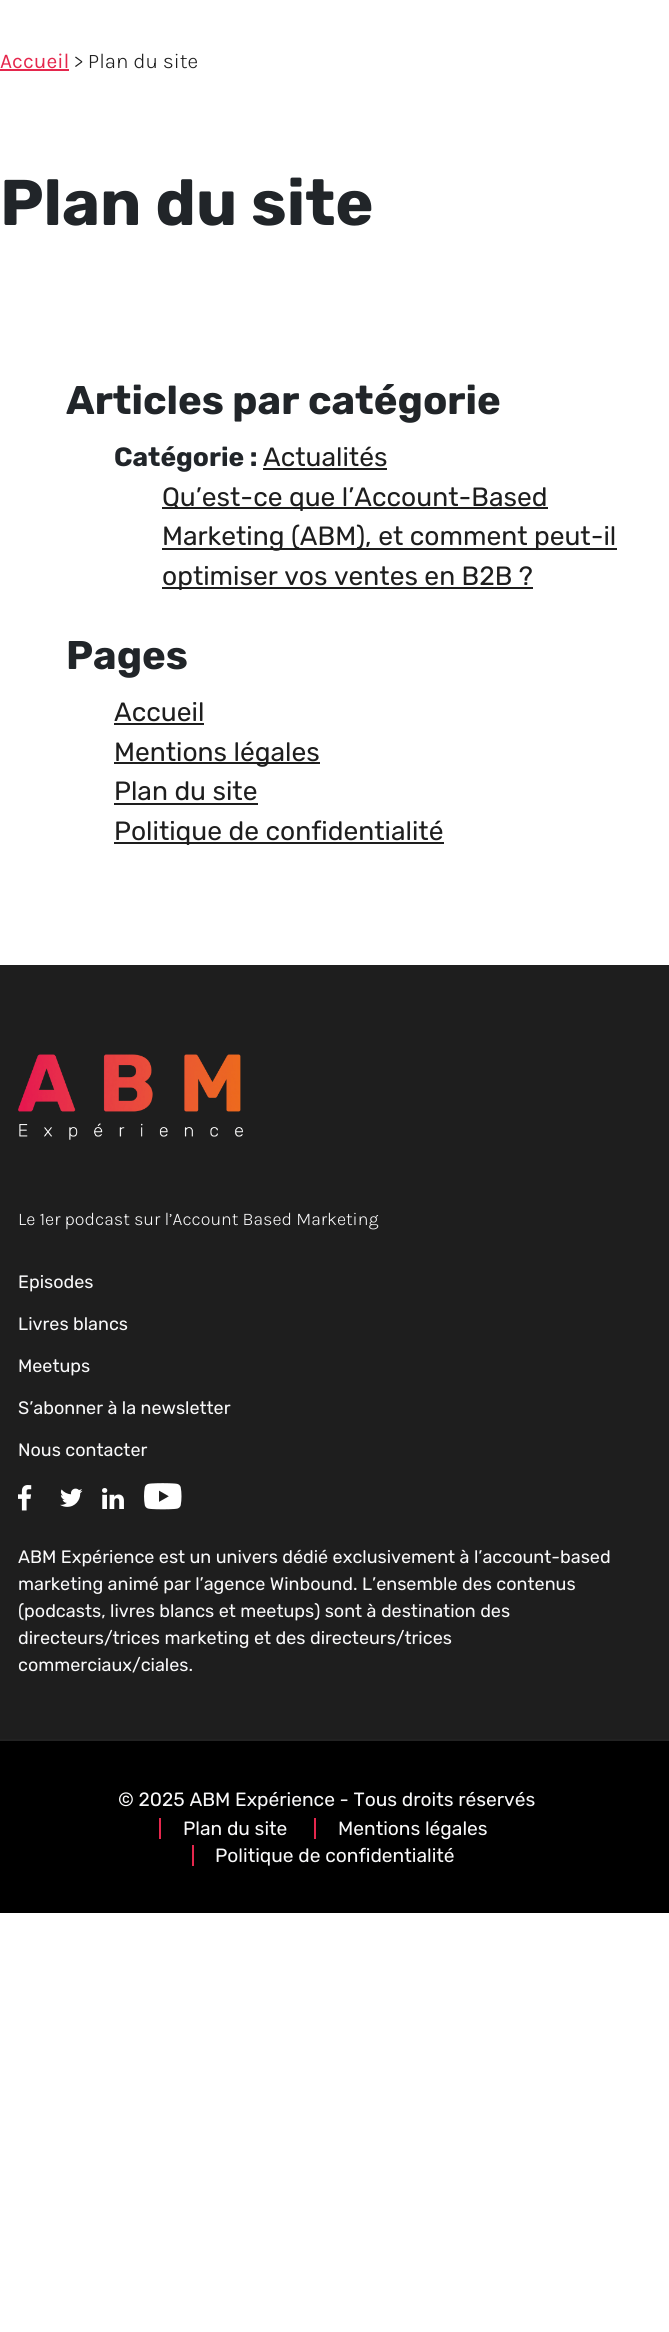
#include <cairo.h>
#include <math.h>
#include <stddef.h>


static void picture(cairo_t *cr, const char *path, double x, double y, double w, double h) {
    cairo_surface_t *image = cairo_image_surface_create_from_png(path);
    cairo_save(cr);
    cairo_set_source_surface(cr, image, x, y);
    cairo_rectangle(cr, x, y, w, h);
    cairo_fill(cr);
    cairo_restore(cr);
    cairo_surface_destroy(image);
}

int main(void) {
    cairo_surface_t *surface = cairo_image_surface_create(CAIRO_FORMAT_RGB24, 669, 2332);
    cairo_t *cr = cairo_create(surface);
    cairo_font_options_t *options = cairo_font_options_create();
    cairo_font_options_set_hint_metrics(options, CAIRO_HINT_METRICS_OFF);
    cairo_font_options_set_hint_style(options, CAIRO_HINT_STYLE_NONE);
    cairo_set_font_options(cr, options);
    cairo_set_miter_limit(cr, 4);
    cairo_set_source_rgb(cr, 1, 1, 1);
    cairo_paint(cr);
    cairo_select_font_face(cr, "Karla", CAIRO_FONT_SLANT_NORMAL, CAIRO_FONT_WEIGHT_NORMAL);
    cairo_set_font_size(cr, 21);
    cairo_set_source_rgb(cr, 0.898, 0.153, 0.302);
    cairo_move_to(cr, 0, 68);
    cairo_show_text(cr, "Accueil");
    cairo_rectangle(cr, 0, 69, 69, 2);
    cairo_fill(cr);
    cairo_select_font_face(cr, "Karla Light", CAIRO_FONT_SLANT_NORMAL, CAIRO_FONT_WEIGHT_NORMAL);
    cairo_set_source_rgb(cr, 0.118, 0.118, 0.118);
    cairo_move_to(cr, 74, 68);
    cairo_show_text(cr, "> Plan du site");
    cairo_select_font_face(cr, "Rubik", CAIRO_FONT_SLANT_NORMAL, CAIRO_FONT_WEIGHT_BOLD);
    cairo_set_font_size(cr, 64.5);
    cairo_set_source_rgb(cr, 0.129, 0.145, 0.161);
    cairo_move_to(cr, 0, 225);
    cairo_show_text(cr, "Plan du site");
    cairo_set_font_size(cr, 40);
    cairo_move_to(cr, 66, 414);
    cairo_show_text(cr, "Articles par catégorie");
    cairo_set_font_size(cr, 26.4);
    cairo_move_to(cr, 114, 466);
    cairo_show_text(cr, "Catégorie :");
    cairo_select_font_face(cr, "Rubik", CAIRO_FONT_SLANT_NORMAL, CAIRO_FONT_WEIGHT_NORMAL);
    cairo_set_source_rgb(cr, 0.118, 0.118, 0.118);
    cairo_move_to(cr, 263, 466);
    cairo_show_text(cr, "Actualités");
    cairo_rectangle(cr, 263, 468, 124, 2);
    cairo_fill(cr);
    cairo_rectangle(cr, 162, 507, 386, 2);
    cairo_fill(cr);
    cairo_move_to(cr, 162, 506);
    cairo_show_text(cr, "Qu’est-ce que l’Account-Based");
    cairo_rectangle(cr, 162, 548, 455, 2);
    cairo_fill(cr);
    cairo_move_to(cr, 162, 545);
    cairo_show_text(cr, "Marketing (ABM), et comment peut-il");
    cairo_rectangle(cr, 162, 587, 371, 2);
    cairo_fill(cr);
    cairo_move_to(cr, 162, 585);
    cairo_show_text(cr, "optimiser vos ventes en B2B ?");
    cairo_select_font_face(cr, "Rubik", CAIRO_FONT_SLANT_NORMAL, CAIRO_FONT_WEIGHT_BOLD);
    cairo_set_font_size(cr, 40);
    cairo_set_source_rgb(cr, 0.129, 0.145, 0.161);
    cairo_move_to(cr, 66, 669);
    cairo_show_text(cr, "Pages");
    cairo_select_font_face(cr, "Rubik", CAIRO_FONT_SLANT_NORMAL, CAIRO_FONT_WEIGHT_NORMAL);
    cairo_set_font_size(cr, 26.4);
    cairo_set_source_rgb(cr, 0.118, 0.118, 0.118);
    cairo_move_to(cr, 114, 721);
    cairo_show_text(cr, "Accueil");
    cairo_rectangle(cr, 114, 723, 90, 2);
    cairo_fill(cr);
    cairo_rectangle(cr, 114, 762, 206, 2);
    cairo_fill(cr);
    cairo_move_to(cr, 114, 761);
    cairo_show_text(cr, "Mentions légales");
    cairo_move_to(cr, 114, 800);
    cairo_show_text(cr, "Plan du site");
    cairo_rectangle(cr, 114, 803, 144, 2);
    cairo_fill(cr);
    cairo_rectangle(cr, 114, 842, 330, 2);
    cairo_fill(cr);
    cairo_move_to(cr, 114, 840);
    cairo_show_text(cr, "Politique de confidentialité");
    cairo_rectangle(cr, 0, 965, 669, 774);
    cairo_fill(cr);
    picture(cr, "img1.png", 18, 1054, 225, 86);
    cairo_select_font_face(cr, "Karla Light", CAIRO_FONT_SLANT_NORMAL, CAIRO_FONT_WEIGHT_NORMAL);
    cairo_set_font_size(cr, 18);
    cairo_set_source_rgb(cr, 0.973, 0.976, 0.98);
    cairo_move_to(cr, 18, 1225);
    cairo_show_text(cr, "Le 1er podcast sur l’Account Based Marketing");
    cairo_select_font_face(cr, "Rubik", CAIRO_FONT_SLANT_NORMAL, CAIRO_FONT_WEIGHT_NORMAL);
    cairo_move_to(cr, 18, 1288);
    cairo_show_text(cr, "Episodes");
    cairo_move_to(cr, 18, 1330);
    cairo_show_text(cr, "Livres blancs");
    cairo_move_to(cr, 18, 1372);
    cairo_show_text(cr, "Meetups");
    cairo_move_to(cr, 18, 1414);
    cairo_show_text(cr, "S’abonner à la newsletter");
    cairo_move_to(cr, 18, 1456);
    cairo_show_text(cr, "Nous contacter");
    picture(cr, "img2.png", 18, 1485, 14, 26);
    picture(cr, "img3.png", 60, 1488, 23, 19);
    picture(cr, "img4.png", 102, 1488, 22, 21);
    picture(cr, "img5.png", 144, 1483, 38, 27);
    cairo_move_to(cr, 18, 1563);
    cairo_show_text(cr, "ABM Expérience est un univers dédié exclusivement à l’account-based");
    cairo_move_to(cr, 18, 1590);
    cairo_show_text(cr, "marketing animé par l’agence Winbound. L’ensemble des contenus");
    cairo_move_to(cr, 18, 1617);
    cairo_show_text(cr, "(podcasts, livres blancs et meetups) sont à destination des");
    cairo_move_to(cr, 18, 1644);
    cairo_show_text(cr, "directeurs/trices marketing et des directeurs/trices");
    cairo_move_to(cr, 18, 1671);
    cairo_show_text(cr, "commerciaux/ciales.");
    cairo_set_source_rgb(cr, 0, 0, 0);
    cairo_rectangle(cr, 0, 1741, 669, 172);
    cairo_fill(cr);
    cairo_set_source_rgb(cr, 0.133, 0.133, 0.133);
    cairo_rectangle(cr, 0, 1739, 669, 2);
    cairo_fill(cr);
    cairo_set_font_size(cr, 19.2);
    cairo_set_source_rgb(cr, 0.973, 0.976, 0.98);
    cairo_move_to(cr, 118, 1806);
    cairo_show_text(cr, "© 2025 ABM Expérience - Tous droits réservés");
    cairo_set_source_rgb(cr, 0.898, 0.153, 0.302);
    cairo_rectangle(cr, 159, 1818, 2, 21);
    cairo_fill(cr);
    cairo_set_source_rgb(cr, 0.973, 0.976, 0.98);
    cairo_move_to(cr, 183, 1835);
    cairo_show_text(cr, "Plan du site");
    cairo_set_source_rgb(cr, 0.898, 0.153, 0.302);
    cairo_rectangle(cr, 314, 1818, 2, 21);
    cairo_fill(cr);
    cairo_set_source_rgb(cr, 0.973, 0.976, 0.98);
    cairo_move_to(cr, 338, 1835);
    cairo_show_text(cr, "Mentions légales");
    cairo_set_source_rgb(cr, 0.898, 0.153, 0.302);
    cairo_rectangle(cr, 192, 1845, 2, 21);
    cairo_fill(cr);
    cairo_set_source_rgb(cr, 0.973, 0.976, 0.98);
    cairo_move_to(cr, 215, 1862);
    cairo_show_text(cr, "Politique de confidentialité");
    cairo_surface_write_to_png(surface, "page.png");
    cairo_font_options_destroy(options);
    cairo_destroy(cr);
    cairo_surface_destroy(surface);
    return 0;
}
